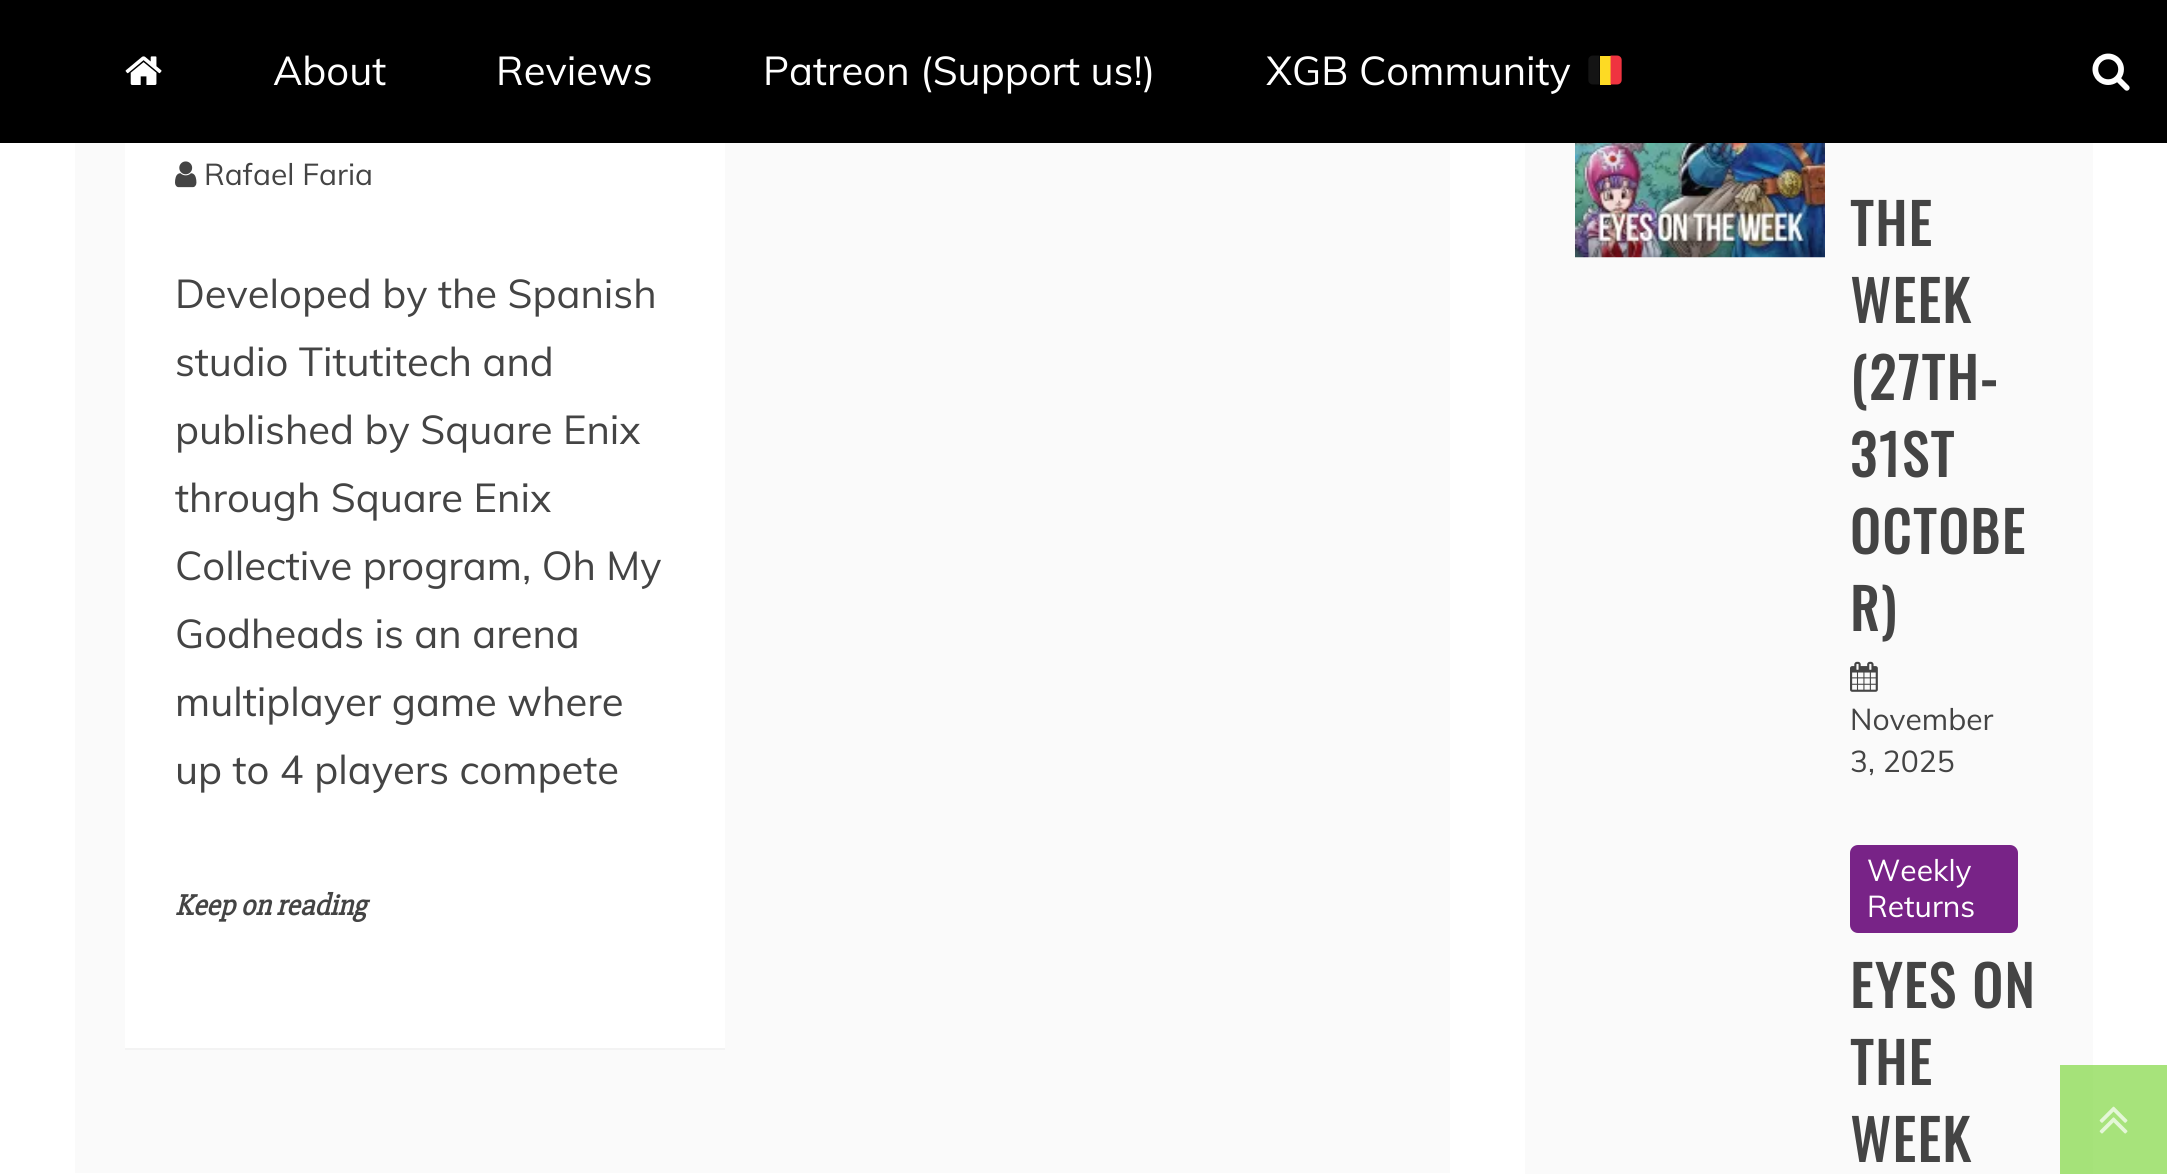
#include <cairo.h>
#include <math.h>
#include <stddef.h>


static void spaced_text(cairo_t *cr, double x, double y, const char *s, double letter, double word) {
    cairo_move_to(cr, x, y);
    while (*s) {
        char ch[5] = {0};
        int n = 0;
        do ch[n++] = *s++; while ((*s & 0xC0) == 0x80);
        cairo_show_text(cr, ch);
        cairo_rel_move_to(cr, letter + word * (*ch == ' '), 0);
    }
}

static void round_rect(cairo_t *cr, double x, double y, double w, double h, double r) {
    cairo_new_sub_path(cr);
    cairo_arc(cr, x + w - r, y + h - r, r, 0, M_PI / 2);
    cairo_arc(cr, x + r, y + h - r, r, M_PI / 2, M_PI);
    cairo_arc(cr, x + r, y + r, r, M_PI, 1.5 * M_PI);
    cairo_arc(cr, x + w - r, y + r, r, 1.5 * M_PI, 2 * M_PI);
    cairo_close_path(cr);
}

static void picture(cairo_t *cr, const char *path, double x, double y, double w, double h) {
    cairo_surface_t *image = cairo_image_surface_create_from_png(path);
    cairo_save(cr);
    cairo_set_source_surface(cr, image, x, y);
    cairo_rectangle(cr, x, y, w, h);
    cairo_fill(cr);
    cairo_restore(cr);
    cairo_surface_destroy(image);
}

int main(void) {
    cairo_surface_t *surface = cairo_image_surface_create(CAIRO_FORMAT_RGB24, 2167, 1174);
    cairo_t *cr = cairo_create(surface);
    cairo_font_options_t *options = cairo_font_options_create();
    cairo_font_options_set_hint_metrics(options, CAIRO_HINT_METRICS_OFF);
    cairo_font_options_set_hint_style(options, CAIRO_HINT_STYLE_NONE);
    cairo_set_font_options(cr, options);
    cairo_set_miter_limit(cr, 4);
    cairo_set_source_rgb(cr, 1, 1, 1);
    cairo_paint(cr);
    cairo_set_source_rgb(cr, 0, 0, 0);
    cairo_rectangle(cr, 0, 0, 2167, 143);
    cairo_fill(cr);
    picture(cr, "img1.png", 125, 56, 37, 29);
    cairo_select_font_face(cr, "Muli", CAIRO_FONT_SLANT_NORMAL, CAIRO_FONT_WEIGHT_NORMAL);
    cairo_set_font_size(cr, 40);
    cairo_set_source_rgb(cr, 1, 1, 1);
    cairo_move_to(cr, 273, 85);
    cairo_show_text(cr, "About");
    cairo_move_to(cr, 496, 85);
    cairo_show_text(cr, "Reviews");
    cairo_move_to(cr, 763, 85);
    cairo_show_text(cr, "Patreon (Support us!)");
    cairo_move_to(cr, 1266, 85);
    cairo_show_text(cr, "XGB Community");
    picture(cr, "img2.png", 1588, 55, 34, 30);
    picture(cr, "img3.png", 2092, 53, 38, 38);
    cairo_set_source_rgb(cr, 0.655, 0.89, 0.482);
    cairo_rectangle(cr, 2093, 1065, 74, 109);
    cairo_fill(cr);
    cairo_set_source_rgb(cr, 0.98, 0.98, 0.98);
    cairo_rectangle(cr, 75, 143, 1375, 1030);
    cairo_fill(cr);
    cairo_set_source_rgb(cr, 0.953, 0.953, 0.953);
    cairo_rectangle(cr, 125, 1048, 600, 2);
    cairo_fill(cr);
    cairo_set_source_rgb(cr, 1, 1, 1);
    cairo_rectangle(cr, 125, 143, 600, 905);
    cairo_fill(cr);
    picture(cr, "img4.png", 175, 161, 22, 27);
    cairo_set_font_size(cr, 30);
    cairo_set_source_rgb(cr, 0.267, 0.267, 0.267);
    cairo_move_to(cr, 204, 185);
    cairo_show_text(cr, "Rafael Faria");
    cairo_set_font_size(cr, 40);
    cairo_move_to(cr, 175, 308);
    cairo_show_text(cr, "Developed by the Spanish");
    cairo_move_to(cr, 175, 376);
    cairo_show_text(cr, "studio Titutitech and");
    cairo_move_to(cr, 175, 444);
    cairo_show_text(cr, "published by Square Enix");
    cairo_move_to(cr, 175, 512);
    cairo_show_text(cr, "through Square Enix");
    cairo_move_to(cr, 175, 580);
    cairo_show_text(cr, "Collective program, Oh My");
    cairo_move_to(cr, 175, 648);
    cairo_show_text(cr, "Godheads is an arena");
    cairo_move_to(cr, 175, 716);
    cairo_show_text(cr, "multiplayer game where");
    cairo_move_to(cr, 175, 784);
    cairo_show_text(cr, "up to 4 players compete");
    cairo_select_font_face(cr, "Slabo 27px", CAIRO_FONT_SLANT_ITALIC, CAIRO_FONT_WEIGHT_BOLD);
    cairo_set_font_size(cr, 30);
    cairo_move_to(cr, 175, 915);
    cairo_show_text(cr, "Keep on reading");
    cairo_set_source_rgb(cr, 0.98, 0.98, 0.98);
    cairo_rectangle(cr, 1525, 143, 568, 1031);
    cairo_fill(cr);
    cairo_set_source_rgb(cr, 0.647, 0.886, 0.475);
    cairo_rectangle(cr, 2060, 1065, 33, 109);
    cairo_fill(cr);
    picture(cr, "img5.png", 1575, 143, 250, 115);
    cairo_select_font_face(cr, "Oswald", CAIRO_FONT_SLANT_NORMAL, CAIRO_FONT_WEIGHT_BOLD);
    cairo_set_font_size(cr, 55);
    cairo_set_source_rgb(cr, 0.267, 0.267, 0.267);
    spaced_text(cr, 1850, 246, "THE", 2.5, 0);
    spaced_text(cr, 1850, 323, "WEEK", 2.5, 0);
    spaced_text(cr, 1850, 400, "(27TH-", 2.5, 0);
    spaced_text(cr, 1850, 477, "31ST", 2.5, 0);
    spaced_text(cr, 1850, 554, "OCTOBE", 2.5, 0);
    spaced_text(cr, 1850, 631, "R)", 2.5, 0);
    picture(cr, "img6.png", 1850, 661, 28, 31);
    cairo_select_font_face(cr, "Muli", CAIRO_FONT_SLANT_NORMAL, CAIRO_FONT_WEIGHT_NORMAL);
    cairo_set_font_size(cr, 30);
    cairo_move_to(cr, 1850, 730);
    cairo_show_text(cr, "November");
    cairo_move_to(cr, 1850, 772);
    cairo_show_text(cr, "3, 2025");
    cairo_set_source_rgb(cr, 0.471, 0.137, 0.529);
    round_rect(cr, 1850, 845, 168, 88, 8);
    cairo_fill(cr);
    cairo_set_source_rgb(cr, 1, 1, 1);
    cairo_move_to(cr, 1867, 881);
    cairo_show_text(cr, "Weekly");
    cairo_move_to(cr, 1867, 917);
    cairo_show_text(cr, "Returns");
    cairo_select_font_face(cr, "Oswald", CAIRO_FONT_SLANT_NORMAL, CAIRO_FONT_WEIGHT_BOLD);
    cairo_set_font_size(cr, 55);
    cairo_set_source_rgb(cr, 0.267, 0.267, 0.267);
    spaced_text(cr, 1850, 1008, "EYES ON", 2.5, 0);
    spaced_text(cr, 1850, 1085, "THE", 2.5, 0);
    spaced_text(cr, 1850, 1162, "WEEK", 2.5, 0);
    picture(cr, "img7.png", 2099, 1106, 29, 28);
    cairo_surface_write_to_png(surface, "page.png");
    cairo_font_options_destroy(options);
    cairo_destroy(cr);
    cairo_surface_destroy(surface);
    return 0;
}
